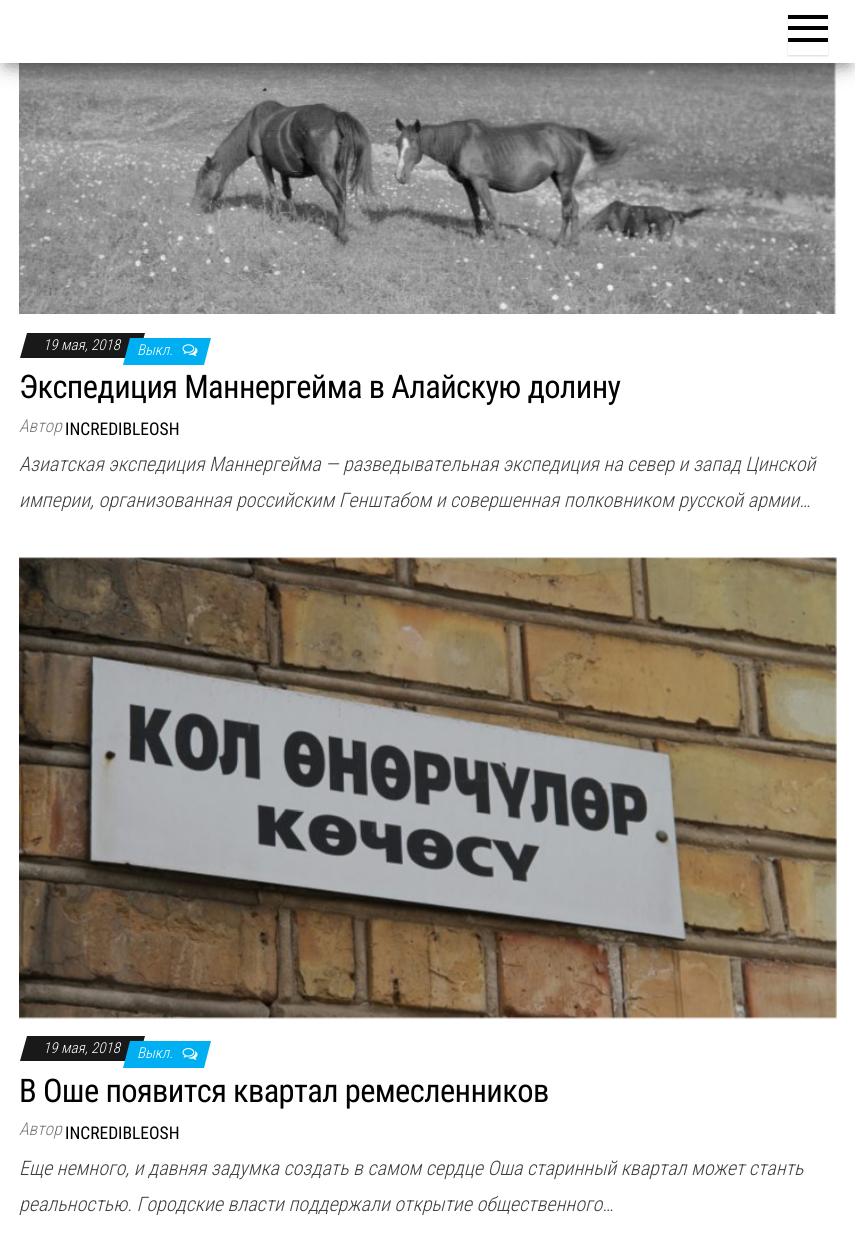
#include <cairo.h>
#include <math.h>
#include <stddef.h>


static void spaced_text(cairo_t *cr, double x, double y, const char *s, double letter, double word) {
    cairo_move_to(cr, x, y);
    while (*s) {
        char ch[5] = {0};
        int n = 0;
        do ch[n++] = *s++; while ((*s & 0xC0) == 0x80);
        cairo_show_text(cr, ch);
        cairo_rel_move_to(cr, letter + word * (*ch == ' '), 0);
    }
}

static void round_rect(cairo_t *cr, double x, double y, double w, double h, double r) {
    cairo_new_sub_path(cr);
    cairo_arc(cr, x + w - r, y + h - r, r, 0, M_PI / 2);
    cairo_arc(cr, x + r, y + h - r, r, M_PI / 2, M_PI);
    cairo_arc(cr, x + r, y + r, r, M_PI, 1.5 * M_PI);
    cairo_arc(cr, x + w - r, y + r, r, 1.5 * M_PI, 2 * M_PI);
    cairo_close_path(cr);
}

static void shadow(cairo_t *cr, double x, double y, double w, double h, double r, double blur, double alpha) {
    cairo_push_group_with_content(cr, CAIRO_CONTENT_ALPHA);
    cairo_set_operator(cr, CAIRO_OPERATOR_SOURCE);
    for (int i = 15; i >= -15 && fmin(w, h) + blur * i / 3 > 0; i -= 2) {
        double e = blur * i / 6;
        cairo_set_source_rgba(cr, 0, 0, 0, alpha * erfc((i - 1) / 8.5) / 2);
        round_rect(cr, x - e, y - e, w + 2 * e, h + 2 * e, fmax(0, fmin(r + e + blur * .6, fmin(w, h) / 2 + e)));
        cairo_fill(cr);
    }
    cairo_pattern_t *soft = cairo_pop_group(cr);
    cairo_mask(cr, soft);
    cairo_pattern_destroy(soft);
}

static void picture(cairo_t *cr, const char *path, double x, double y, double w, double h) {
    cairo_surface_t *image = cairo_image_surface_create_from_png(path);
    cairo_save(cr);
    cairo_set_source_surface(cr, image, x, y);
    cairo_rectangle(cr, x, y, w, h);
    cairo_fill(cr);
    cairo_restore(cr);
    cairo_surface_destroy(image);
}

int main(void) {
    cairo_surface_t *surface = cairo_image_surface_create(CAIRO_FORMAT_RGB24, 855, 1238);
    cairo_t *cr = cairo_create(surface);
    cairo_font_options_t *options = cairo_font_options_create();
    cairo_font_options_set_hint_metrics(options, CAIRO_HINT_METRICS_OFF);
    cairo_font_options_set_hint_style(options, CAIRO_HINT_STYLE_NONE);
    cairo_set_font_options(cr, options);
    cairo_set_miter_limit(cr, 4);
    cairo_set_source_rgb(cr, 1, 1, 1);
    cairo_paint(cr);
    picture(cr, "img1.png", 19, 63, 818, 251);
    cairo_set_source_rgb(cr, 0, 0, 0);
    shadow(cr, 6, 16, 843, 50, 0, 6, 0.2);
    shadow(cr, 0, 4, 855, 62, 0, 12.5, 0.12);
    shadow(cr, 15, 28, 825, 32, 0, 12.5, 0.42);
    cairo_set_source_rgb(cr, 1, 1, 1);
    cairo_rectangle(cr, 0, 0, 855, 63);
    cairo_fill(cr);
    cairo_save(cr);
    cairo_set_fill_rule(cr, CAIRO_FILL_RULE_EVEN_ODD);
    cairo_new_path(cr);
    cairo_move_to(cr, 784, 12);
    cairo_line_to(cr, 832, 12);
    cairo_line_to(cr, 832, 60);
    cairo_line_to(cr, 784, 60);
    cairo_close_path(cr);
    cairo_move_to(cr, 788, 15);
    cairo_line_to(cr, 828, 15);
    cairo_line_to(cr, 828, 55);
    cairo_line_to(cr, 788, 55);
    cairo_close_path(cr);
    cairo_clip(cr);
    cairo_set_source_rgb(cr, 0, 0, 0);
    shadow(cr, 788, 16, 40, 40, 0, 1, 0.15);
    cairo_restore(cr);
    cairo_set_source_rgb(cr, 0, 0, 0);
    cairo_rectangle(cr, 788, 15, 40, 4);
    cairo_fill(cr);
    cairo_rectangle(cr, 788, 26, 40, 4);
    cairo_fill(cr);
    cairo_rectangle(cr, 788, 38, 40, 4);
    cairo_fill(cr);
    cairo_set_source_rgb(cr, 0.098, 0.098, 0.098);
    cairo_new_path(cr);
    cairo_move_to(cr, 27, 333);
    cairo_line_to(cr, 145, 333);
    cairo_line_to(cr, 138, 358);
    cairo_line_to(cr, 20, 358);
    cairo_close_path(cr);
    cairo_fill(cr);
    cairo_select_font_face(cr, "Roboto Condensed Light", CAIRO_FONT_SLANT_ITALIC, CAIRO_FONT_WEIGHT_NORMAL);
    cairo_set_font_size(cr, 15);
    cairo_set_source_rgb(cr, 1, 1, 1);
    cairo_move_to(cr, 43, 350);
    cairo_show_text(cr, "19 мая, 2018");
    cairo_set_source_rgb(cr, 0, 0.686, 0.949);
    cairo_new_path(cr);
    cairo_move_to(cr, 130, 338);
    cairo_line_to(cr, 211, 338);
    cairo_line_to(cr, 204, 365);
    cairo_line_to(cr, 123, 365);
    cairo_close_path(cr);
    cairo_fill(cr);
    cairo_set_source_rgb(cr, 1, 1, 1);
    cairo_move_to(cr, 137, 355);
    cairo_show_text(cr, "Выкл.");
    picture(cr, "img2.png", 182, 344, 16, 12);
    cairo_select_font_face(cr, "Roboto Condensed", CAIRO_FONT_SLANT_NORMAL, CAIRO_FONT_WEIGHT_NORMAL);
    cairo_set_font_size(cr, 32.5);
    cairo_set_source_rgb(cr, 0, 0, 0);
    spaced_text(cr, 19, 398, "Экспедиция Маннергейма в Алайскую долину", -0.65, 0);
    cairo_select_font_face(cr, "Roboto Condensed Light", CAIRO_FONT_SLANT_ITALIC, CAIRO_FONT_WEIGHT_NORMAL);
    cairo_set_font_size(cr, 17.5);
    cairo_set_source_rgb(cr, 0.475, 0.475, 0.475);
    cairo_move_to(cr, 19, 432);
    cairo_show_text(cr, "Автор");
    cairo_select_font_face(cr, "Roboto Condensed", CAIRO_FONT_SLANT_NORMAL, CAIRO_FONT_WEIGHT_NORMAL);
    cairo_set_source_rgb(cr, 0, 0, 0);
    cairo_move_to(cr, 65, 435);
    cairo_show_text(cr, "INCREDIBLEOSH");
    cairo_select_font_face(cr, "Roboto Condensed Light", CAIRO_FONT_SLANT_ITALIC, CAIRO_FONT_WEIGHT_NORMAL);
    cairo_set_font_size(cr, 20);
    cairo_set_source_rgb(cr, 0.251, 0.251, 0.251);
    cairo_move_to(cr, 19, 471);
    cairo_show_text(cr, "Азиатская экспедиция Маннергейма — разведывательная экспедиция на север и запад Цинской");
    cairo_move_to(cr, 19, 507);
    cairo_show_text(cr, "империи, организованная российским Генштабом и совершенная полковником русской армии…");
    picture(cr, "img3.png", 19, 557, 818, 462);
    cairo_set_source_rgb(cr, 0.098, 0.098, 0.098);
    cairo_new_path(cr);
    cairo_move_to(cr, 27, 1036);
    cairo_line_to(cr, 145, 1036);
    cairo_line_to(cr, 138, 1061);
    cairo_line_to(cr, 20, 1061);
    cairo_close_path(cr);
    cairo_fill(cr);
    cairo_set_font_size(cr, 15);
    cairo_set_source_rgb(cr, 1, 1, 1);
    cairo_move_to(cr, 43, 1053);
    cairo_show_text(cr, "19 мая, 2018");
    cairo_set_source_rgb(cr, 0, 0.686, 0.949);
    cairo_new_path(cr);
    cairo_move_to(cr, 130, 1041);
    cairo_line_to(cr, 211, 1041);
    cairo_line_to(cr, 204, 1068);
    cairo_line_to(cr, 123, 1068);
    cairo_close_path(cr);
    cairo_fill(cr);
    cairo_set_source_rgb(cr, 1, 1, 1);
    cairo_move_to(cr, 137, 1058);
    cairo_show_text(cr, "Выкл.");
    picture(cr, "img4.png", 182, 1048, 16, 12);
    cairo_select_font_face(cr, "Roboto Condensed", CAIRO_FONT_SLANT_NORMAL, CAIRO_FONT_WEIGHT_NORMAL);
    cairo_set_font_size(cr, 32.5);
    cairo_set_source_rgb(cr, 0, 0, 0);
    spaced_text(cr, 19, 1102, "В Оше появится квартал ремесленников", -0.65, 0);
    cairo_select_font_face(cr, "Roboto Condensed Light", CAIRO_FONT_SLANT_ITALIC, CAIRO_FONT_WEIGHT_NORMAL);
    cairo_set_font_size(cr, 17.5);
    cairo_set_source_rgb(cr, 0.475, 0.475, 0.475);
    cairo_move_to(cr, 19, 1135);
    cairo_show_text(cr, "Автор");
    cairo_select_font_face(cr, "Roboto Condensed", CAIRO_FONT_SLANT_NORMAL, CAIRO_FONT_WEIGHT_NORMAL);
    cairo_set_source_rgb(cr, 0, 0, 0);
    cairo_move_to(cr, 65, 1139);
    cairo_show_text(cr, "INCREDIBLEOSH");
    cairo_select_font_face(cr, "Roboto Condensed Light", CAIRO_FONT_SLANT_ITALIC, CAIRO_FONT_WEIGHT_NORMAL);
    cairo_set_font_size(cr, 20);
    cairo_set_source_rgb(cr, 0.251, 0.251, 0.251);
    cairo_move_to(cr, 19, 1175);
    cairo_show_text(cr, "Еще немного, и давняя задумка создать в самом сердце Оша старинный квартал может станть");
    cairo_move_to(cr, 19, 1211);
    cairo_show_text(cr, "реальностью. Городские власти поддержали открытие общественного…");
    cairo_surface_write_to_png(surface, "page.png");
    cairo_font_options_destroy(options);
    cairo_destroy(cr);
    cairo_surface_destroy(surface);
    return 0;
}
